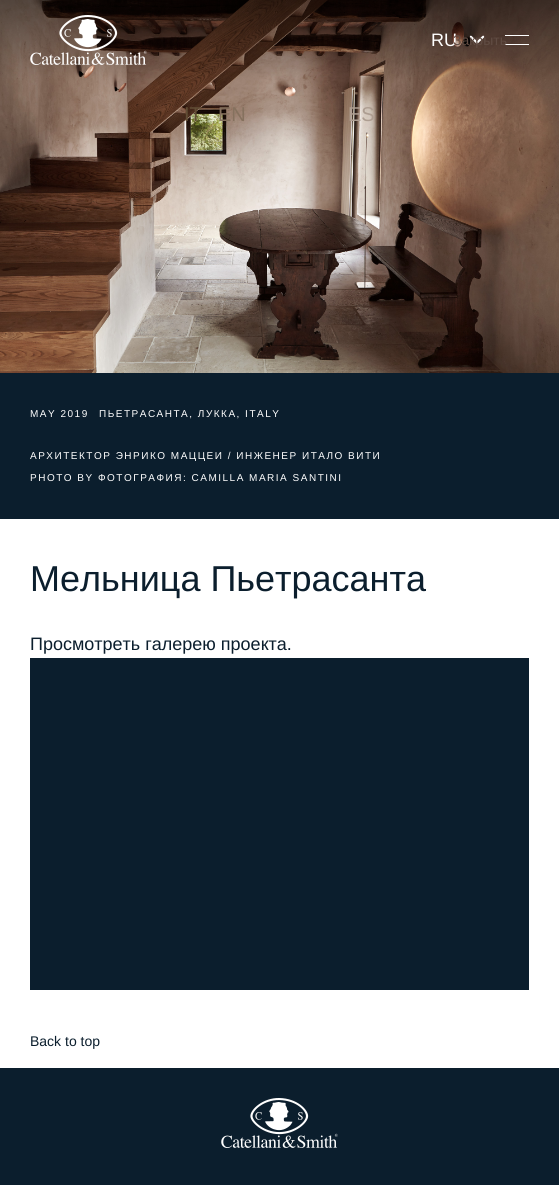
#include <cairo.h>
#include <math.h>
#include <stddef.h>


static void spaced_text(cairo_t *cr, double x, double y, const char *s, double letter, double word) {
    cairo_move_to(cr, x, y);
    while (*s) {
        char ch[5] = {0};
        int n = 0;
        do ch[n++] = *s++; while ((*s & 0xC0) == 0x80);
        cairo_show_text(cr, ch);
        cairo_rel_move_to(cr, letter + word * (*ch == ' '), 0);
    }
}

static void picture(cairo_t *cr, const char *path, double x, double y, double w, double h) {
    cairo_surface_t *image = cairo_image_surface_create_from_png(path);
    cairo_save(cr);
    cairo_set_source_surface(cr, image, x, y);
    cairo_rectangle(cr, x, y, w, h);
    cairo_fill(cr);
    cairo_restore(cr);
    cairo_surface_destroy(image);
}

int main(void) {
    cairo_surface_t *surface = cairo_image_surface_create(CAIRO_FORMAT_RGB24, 559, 1185);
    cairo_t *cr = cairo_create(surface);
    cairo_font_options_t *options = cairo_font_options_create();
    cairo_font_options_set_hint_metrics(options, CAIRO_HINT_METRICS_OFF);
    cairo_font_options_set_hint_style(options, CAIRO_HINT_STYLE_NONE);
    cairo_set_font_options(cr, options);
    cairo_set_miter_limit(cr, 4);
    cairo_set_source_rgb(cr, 1, 1, 1);
    cairo_paint(cr);
    picture(cr, "img1.png", 0, 0, 559, 373);
    picture(cr, "img2.png", 30, 15, 117, 50);
    cairo_select_font_face(cr, "Liberation Sans", CAIRO_FONT_SLANT_NORMAL, CAIRO_FONT_WEIGHT_NORMAL);
    cairo_set_font_size(cr, 18);
    cairo_set_source_rgb(cr, 1, 1, 1);
    cairo_move_to(cr, 431, 46);
    cairo_show_text(cr, "RU");
    picture(cr, "img3.png", 469, 35, 16, 9);
    cairo_set_font_size(cr, 20);
    cairo_set_source_rgb(cr, 0.38, 0.302, 0.208);
    cairo_move_to(cr, 184, 121);
    cairo_show_text(cr, "IT");
    cairo_set_source_rgb(cr, 0.522, 0.443, 0.369);
    cairo_move_to(cr, 218, 121);
    cairo_show_text(cr, "EN");
    cairo_set_source_rgb(cr, 0.678, 0.616, 0.569);
    cairo_move_to(cr, 348, 121);
    cairo_show_text(cr, "ES");
    cairo_set_source_rgb(cr, 1, 1, 1);
    cairo_rectangle(cr, 505, 35, 24, 1);
    cairo_fill(cr);
    cairo_rectangle(cr, 505, 44, 24, 1);
    cairo_fill(cr);
    cairo_set_font_size(cr, 14);
    cairo_set_source_rgb(cr, 0.376, 0.298, 0.263);
    cairo_move_to(cr, 453, 45);
    cairo_show_text(cr, "Закрыть");
    cairo_set_source_rgb(cr, 0.043, 0.118, 0.176);
    cairo_rectangle(cr, 0, 373, 559, 146);
    cairo_fill(cr);
    cairo_set_font_size(cr, 10);
    cairo_set_source_rgb(cr, 1, 1, 1);
    spaced_text(cr, 30, 417, "MAY 2019", 1.5, 0);
    spaced_text(cr, 99, 417, "ПЬЕТРАСАНТА, ЛУККА, ITALY", 1.5, 0);
    spaced_text(cr, 30, 459, "АРХИТЕКТОР ЭНРИКО МАЦЦЕИ / ИНЖЕНЕР ИТАЛО ВИТИ", 1.5, 0);
    spaced_text(cr, 30, 481, "PHOTO BY ФОТОГРАФИЯ: CAMILLA MARIA SANTINI", 1.5, 0);
    cairo_set_font_size(cr, 36);
    cairo_set_source_rgb(cr, 0.043, 0.118, 0.176);
    cairo_move_to(cr, 30, 591);
    cairo_show_text(cr, "Мельница Пьетрасанта");
    cairo_set_font_size(cr, 18);
    cairo_move_to(cr, 30, 650);
    cairo_show_text(cr, "Просмотреть галерею проекта.");
    cairo_rectangle(cr, 30, 658, 499, 332);
    cairo_fill(cr);
    cairo_set_font_size(cr, 14);
    cairo_move_to(cr, 30, 1046);
    cairo_show_text(cr, "Back to top");
    cairo_rectangle(cr, 0, 1068, 559, 117);
    cairo_fill(cr);
    picture(cr, "img4.png", 221, 1098, 117, 50);
    cairo_surface_write_to_png(surface, "page.png");
    cairo_font_options_destroy(options);
    cairo_destroy(cr);
    cairo_surface_destroy(surface);
    return 0;
}
